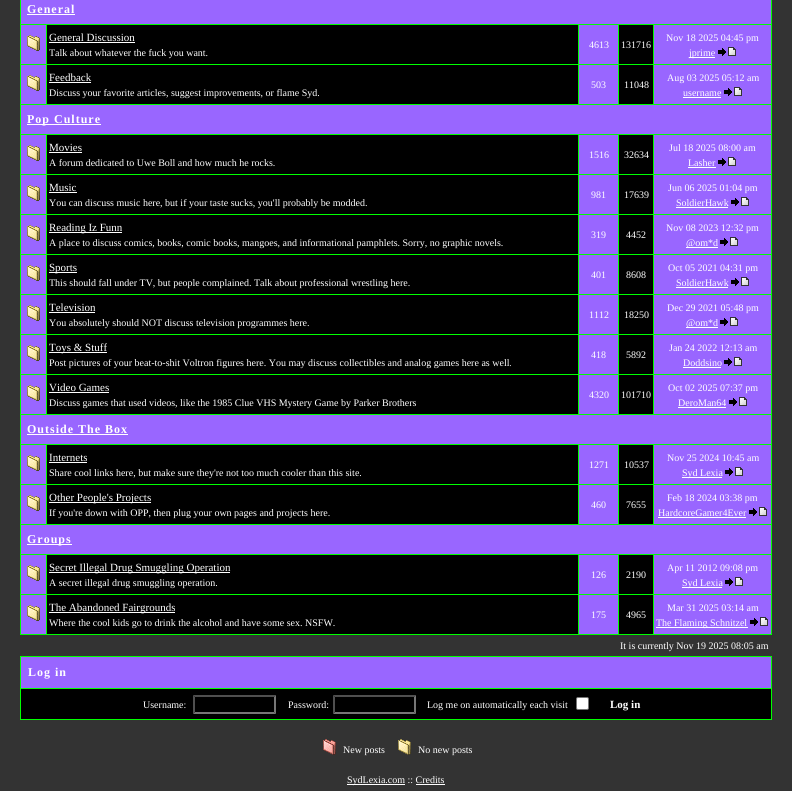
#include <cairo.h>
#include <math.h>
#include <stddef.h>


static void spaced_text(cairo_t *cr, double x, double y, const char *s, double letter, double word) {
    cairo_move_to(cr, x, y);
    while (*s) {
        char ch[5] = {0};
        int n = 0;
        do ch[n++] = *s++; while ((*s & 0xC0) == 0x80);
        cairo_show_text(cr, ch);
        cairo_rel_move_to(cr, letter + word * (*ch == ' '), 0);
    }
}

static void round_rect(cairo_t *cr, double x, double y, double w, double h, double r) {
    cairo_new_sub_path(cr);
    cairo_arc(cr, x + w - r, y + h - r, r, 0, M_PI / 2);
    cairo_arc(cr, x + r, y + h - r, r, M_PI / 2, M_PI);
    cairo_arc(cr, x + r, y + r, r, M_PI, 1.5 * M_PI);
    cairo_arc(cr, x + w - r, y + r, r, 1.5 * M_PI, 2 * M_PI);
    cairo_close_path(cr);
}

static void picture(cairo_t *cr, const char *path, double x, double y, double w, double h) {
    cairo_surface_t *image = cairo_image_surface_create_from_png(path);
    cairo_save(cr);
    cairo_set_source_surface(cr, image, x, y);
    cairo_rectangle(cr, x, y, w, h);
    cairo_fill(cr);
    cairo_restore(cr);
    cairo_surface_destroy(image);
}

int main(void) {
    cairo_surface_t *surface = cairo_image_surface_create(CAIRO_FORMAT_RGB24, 792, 791);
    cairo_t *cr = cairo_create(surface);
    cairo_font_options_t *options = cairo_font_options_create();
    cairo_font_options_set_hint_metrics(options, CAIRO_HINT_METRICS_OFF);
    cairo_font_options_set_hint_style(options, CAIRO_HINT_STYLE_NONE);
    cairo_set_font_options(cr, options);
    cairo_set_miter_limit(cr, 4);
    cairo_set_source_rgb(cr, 0.2, 0.2, 0.2);
    cairo_paint(cr);
    cairo_set_source_rgb(cr, 0, 1, 0);
    cairo_rectangle(cr, 20, 0, 752, 635);
    cairo_fill(cr);
    cairo_set_source_rgb(cr, 0.6, 0.4, 1);
    cairo_rectangle(cr, 21, 0, 750, 24);
    cairo_fill(cr);
    cairo_select_font_face(cr, "Liberation Serif", CAIRO_FONT_SLANT_NORMAL, CAIRO_FONT_WEIGHT_BOLD);
    cairo_set_font_size(cr, 12);
    cairo_set_source_rgb(cr, 1, 1, 1);
    spaced_text(cr, 27, 13, "General", 1, 0);
    cairo_rectangle(cr, 27, 14, 48, 1);
    cairo_fill(cr);
    cairo_set_source_rgb(cr, 0.6, 0.4, 1);
    cairo_rectangle(cr, 21, 25, 25, 39);
    cairo_fill(cr);
    picture(cr, "img1.png", 27, 35, 13, 16);
    cairo_set_source_rgb(cr, 0, 0, 0);
    cairo_rectangle(cr, 47, 25, 531, 39);
    cairo_fill(cr);
    cairo_select_font_face(cr, "Liberation Serif", CAIRO_FONT_SLANT_NORMAL, CAIRO_FONT_WEIGHT_NORMAL);
    cairo_set_font_size(cr, 11);
    cairo_set_source_rgb(cr, 1, 1, 1);
    cairo_move_to(cr, 49, 41);
    cairo_show_text(cr, "General Discussion");
    cairo_rectangle(cr, 49, 42, 86, 1);
    cairo_fill(cr);
    cairo_set_font_size(cr, 10);
    cairo_move_to(cr, 49, 56);
    cairo_show_text(cr, "Talk about whatever the fuck you want.");
    cairo_set_source_rgb(cr, 0.6, 0.4, 1);
    cairo_rectangle(cr, 579, 25, 39, 39);
    cairo_fill(cr);
    cairo_set_source_rgb(cr, 1, 1, 1);
    cairo_move_to(cr, 589, 48);
    cairo_show_text(cr, "4613");
    cairo_set_source_rgb(cr, 0, 0, 0);
    cairo_rectangle(cr, 619, 25, 34, 39);
    cairo_fill(cr);
    cairo_set_source_rgb(cr, 1, 1, 1);
    cairo_move_to(cr, 621, 48);
    cairo_show_text(cr, "131716");
    cairo_set_source_rgb(cr, 0.6, 0.4, 1);
    cairo_rectangle(cr, 654, 25, 117, 39);
    cairo_fill(cr);
    cairo_set_source_rgb(cr, 1, 1, 1);
    cairo_move_to(cr, 666, 41);
    cairo_show_text(cr, "Nov 18 2025 04:45 pm");
    cairo_rectangle(cr, 689, 57, 26, 1);
    cairo_fill(cr);
    cairo_move_to(cr, 689, 56);
    cairo_show_text(cr, "jprime");
    picture(cr, "img2.png", 718, 47, 18, 9);
    cairo_set_source_rgb(cr, 0.6, 0.4, 1);
    cairo_rectangle(cr, 21, 65, 25, 39);
    cairo_fill(cr);
    picture(cr, "img1.png", 27, 75, 13, 16);
    cairo_set_source_rgb(cr, 0, 0, 0);
    cairo_rectangle(cr, 47, 65, 531, 39);
    cairo_fill(cr);
    cairo_set_font_size(cr, 11);
    cairo_set_source_rgb(cr, 1, 1, 1);
    cairo_move_to(cr, 49, 81);
    cairo_show_text(cr, "Feedback");
    cairo_rectangle(cr, 49, 82, 42, 1);
    cairo_fill(cr);
    cairo_set_font_size(cr, 10);
    cairo_move_to(cr, 49, 96);
    cairo_show_text(cr, "Discuss your favorite articles, suggest improvements, or flame Syd.");
    cairo_set_source_rgb(cr, 0.6, 0.4, 1);
    cairo_rectangle(cr, 579, 65, 39, 39);
    cairo_fill(cr);
    cairo_set_source_rgb(cr, 1, 1, 1);
    cairo_move_to(cr, 591, 88);
    cairo_show_text(cr, "503");
    cairo_set_source_rgb(cr, 0, 0, 0);
    cairo_rectangle(cr, 619, 65, 34, 39);
    cairo_fill(cr);
    cairo_set_source_rgb(cr, 1, 1, 1);
    cairo_move_to(cr, 624, 88);
    cairo_show_text(cr, "11048");
    cairo_set_source_rgb(cr, 0.6, 0.4, 1);
    cairo_rectangle(cr, 654, 65, 117, 39);
    cairo_fill(cr);
    cairo_set_source_rgb(cr, 1, 1, 1);
    cairo_move_to(cr, 667, 81);
    cairo_show_text(cr, "Aug 03 2025 05:12 am");
    cairo_move_to(cr, 683, 96);
    cairo_show_text(cr, "username");
    cairo_rectangle(cr, 683, 97, 38, 1);
    cairo_fill(cr);
    picture(cr, "img2.png", 724, 87, 18, 9);
    cairo_set_source_rgb(cr, 0.6, 0.4, 1);
    cairo_rectangle(cr, 21, 105, 750, 29);
    cairo_fill(cr);
    cairo_set_source_rgb(cr, 1, 1, 1);
    cairo_rectangle(cr, 27, 124, 74, 1);
    cairo_fill(cr);
    cairo_select_font_face(cr, "Liberation Serif", CAIRO_FONT_SLANT_NORMAL, CAIRO_FONT_WEIGHT_BOLD);
    cairo_set_font_size(cr, 12);
    spaced_text(cr, 27, 123, "Pop Culture", 1, 0);
    cairo_set_source_rgb(cr, 0.6, 0.4, 1);
    cairo_rectangle(cr, 21, 135, 25, 39);
    cairo_fill(cr);
    picture(cr, "img1.png", 27, 145, 13, 16);
    cairo_set_source_rgb(cr, 0, 0, 0);
    cairo_rectangle(cr, 47, 135, 531, 39);
    cairo_fill(cr);
    cairo_select_font_face(cr, "Liberation Serif", CAIRO_FONT_SLANT_NORMAL, CAIRO_FONT_WEIGHT_NORMAL);
    cairo_set_font_size(cr, 11);
    cairo_set_source_rgb(cr, 1, 1, 1);
    cairo_move_to(cr, 49, 151);
    cairo_show_text(cr, "Movies");
    cairo_rectangle(cr, 49, 152, 33, 1);
    cairo_fill(cr);
    cairo_set_font_size(cr, 10);
    cairo_move_to(cr, 49, 166);
    cairo_show_text(cr, "A forum dedicated to Uwe Boll and how much he rocks.");
    cairo_set_source_rgb(cr, 0.6, 0.4, 1);
    cairo_rectangle(cr, 579, 135, 39, 39);
    cairo_fill(cr);
    cairo_set_source_rgb(cr, 1, 1, 1);
    cairo_move_to(cr, 589, 158);
    cairo_show_text(cr, "1516");
    cairo_set_source_rgb(cr, 0, 0, 0);
    cairo_rectangle(cr, 619, 135, 34, 39);
    cairo_fill(cr);
    cairo_set_source_rgb(cr, 1, 1, 1);
    cairo_move_to(cr, 624, 158);
    cairo_show_text(cr, "32634");
    cairo_set_source_rgb(cr, 0.6, 0.4, 1);
    cairo_rectangle(cr, 654, 135, 117, 39);
    cairo_fill(cr);
    cairo_set_source_rgb(cr, 1, 1, 1);
    cairo_move_to(cr, 669, 151);
    cairo_show_text(cr, "Jul 18 2025 08:00 am");
    cairo_move_to(cr, 688, 166);
    cairo_show_text(cr, "Lasher");
    cairo_rectangle(cr, 688, 167, 28, 1);
    cairo_fill(cr);
    picture(cr, "img2.png", 718, 157, 18, 9);
    cairo_set_source_rgb(cr, 0.6, 0.4, 1);
    cairo_rectangle(cr, 21, 175, 25, 39);
    cairo_fill(cr);
    picture(cr, "img1.png", 27, 185, 13, 16);
    cairo_set_source_rgb(cr, 0, 0, 0);
    cairo_rectangle(cr, 47, 175, 531, 39);
    cairo_fill(cr);
    cairo_set_font_size(cr, 11);
    cairo_set_source_rgb(cr, 1, 1, 1);
    cairo_move_to(cr, 49, 191);
    cairo_show_text(cr, "Music");
    cairo_rectangle(cr, 49, 192, 28, 1);
    cairo_fill(cr);
    cairo_set_font_size(cr, 10);
    cairo_move_to(cr, 49, 206);
    cairo_show_text(cr, "You can discuss music here, but if your taste sucks, you'll probably be modded.");
    cairo_set_source_rgb(cr, 0.6, 0.4, 1);
    cairo_rectangle(cr, 579, 175, 39, 39);
    cairo_fill(cr);
    cairo_set_source_rgb(cr, 1, 1, 1);
    cairo_move_to(cr, 591, 198);
    cairo_show_text(cr, "981");
    cairo_set_source_rgb(cr, 0, 0, 0);
    cairo_rectangle(cr, 619, 175, 34, 39);
    cairo_fill(cr);
    cairo_set_source_rgb(cr, 1, 1, 1);
    cairo_move_to(cr, 624, 198);
    cairo_show_text(cr, "17639");
    cairo_set_source_rgb(cr, 0.6, 0.4, 1);
    cairo_rectangle(cr, 654, 175, 117, 39);
    cairo_fill(cr);
    cairo_set_source_rgb(cr, 1, 1, 1);
    cairo_move_to(cr, 668, 191);
    cairo_show_text(cr, "Jun 06 2025 01:04 pm");
    cairo_move_to(cr, 676, 206);
    cairo_show_text(cr, "SoldierHawk");
    cairo_rectangle(cr, 676, 207, 52, 1);
    cairo_fill(cr);
    picture(cr, "img2.png", 731, 197, 18, 9);
    cairo_set_source_rgb(cr, 0.6, 0.4, 1);
    cairo_rectangle(cr, 21, 215, 25, 39);
    cairo_fill(cr);
    picture(cr, "img1.png", 27, 225, 13, 16);
    cairo_set_source_rgb(cr, 0, 0, 0);
    cairo_rectangle(cr, 47, 215, 531, 39);
    cairo_fill(cr);
    cairo_set_source_rgb(cr, 1, 1, 1);
    cairo_rectangle(cr, 49, 232, 73, 1);
    cairo_fill(cr);
    cairo_set_font_size(cr, 11);
    cairo_move_to(cr, 49, 231);
    cairo_show_text(cr, "Reading Iz Funn");
    cairo_set_font_size(cr, 10);
    cairo_move_to(cr, 49, 246);
    cairo_show_text(cr, "A place to discuss comics, books, comic books, mangoes, and informational pamphlets. Sorry, no graphic novels.");
    cairo_set_source_rgb(cr, 0.6, 0.4, 1);
    cairo_rectangle(cr, 579, 215, 39, 39);
    cairo_fill(cr);
    cairo_set_source_rgb(cr, 1, 1, 1);
    cairo_move_to(cr, 591, 238);
    cairo_show_text(cr, "319");
    cairo_set_source_rgb(cr, 0, 0, 0);
    cairo_rectangle(cr, 619, 215, 34, 39);
    cairo_fill(cr);
    cairo_set_source_rgb(cr, 1, 1, 1);
    cairo_move_to(cr, 626, 238);
    cairo_show_text(cr, "4452");
    cairo_set_source_rgb(cr, 0.6, 0.4, 1);
    cairo_rectangle(cr, 654, 215, 117, 39);
    cairo_fill(cr);
    cairo_set_source_rgb(cr, 1, 1, 1);
    cairo_move_to(cr, 666, 231);
    cairo_show_text(cr, "Nov 08 2023 12:32 pm");
    cairo_rectangle(cr, 686, 247, 32, 1);
    cairo_fill(cr);
    cairo_move_to(cr, 686, 246);
    cairo_show_text(cr, "@om*d");
    picture(cr, "img2.png", 720, 237, 18, 9);
    cairo_set_source_rgb(cr, 0.6, 0.4, 1);
    cairo_rectangle(cr, 21, 255, 25, 39);
    cairo_fill(cr);
    picture(cr, "img1.png", 27, 265, 13, 16);
    cairo_set_source_rgb(cr, 0, 0, 0);
    cairo_rectangle(cr, 47, 255, 531, 39);
    cairo_fill(cr);
    cairo_set_source_rgb(cr, 1, 1, 1);
    cairo_rectangle(cr, 49, 272, 28, 1);
    cairo_fill(cr);
    cairo_set_font_size(cr, 11);
    cairo_move_to(cr, 49, 271);
    cairo_show_text(cr, "Sports");
    cairo_set_font_size(cr, 10);
    cairo_move_to(cr, 49, 286);
    cairo_show_text(cr, "This should fall under TV, but people complained. Talk about professional wrestling here.");
    cairo_set_source_rgb(cr, 0.6, 0.4, 1);
    cairo_rectangle(cr, 579, 255, 39, 39);
    cairo_fill(cr);
    cairo_set_source_rgb(cr, 1, 1, 1);
    cairo_move_to(cr, 591, 278);
    cairo_show_text(cr, "401");
    cairo_set_source_rgb(cr, 0, 0, 0);
    cairo_rectangle(cr, 619, 255, 34, 39);
    cairo_fill(cr);
    cairo_set_source_rgb(cr, 1, 1, 1);
    cairo_move_to(cr, 626, 278);
    cairo_show_text(cr, "8608");
    cairo_set_source_rgb(cr, 0.6, 0.4, 1);
    cairo_rectangle(cr, 654, 255, 117, 39);
    cairo_fill(cr);
    cairo_set_source_rgb(cr, 1, 1, 1);
    cairo_move_to(cr, 668, 271);
    cairo_show_text(cr, "Oct 05 2021 04:31 pm");
    cairo_move_to(cr, 676, 286);
    cairo_show_text(cr, "SoldierHawk");
    cairo_rectangle(cr, 676, 287, 52, 1);
    cairo_fill(cr);
    picture(cr, "img2.png", 731, 277, 18, 9);
    cairo_set_source_rgb(cr, 0.6, 0.4, 1);
    cairo_rectangle(cr, 21, 295, 25, 39);
    cairo_fill(cr);
    picture(cr, "img1.png", 27, 305, 13, 16);
    cairo_set_source_rgb(cr, 0, 0, 0);
    cairo_rectangle(cr, 47, 295, 531, 39);
    cairo_fill(cr);
    cairo_set_font_size(cr, 11);
    cairo_set_source_rgb(cr, 1, 1, 1);
    cairo_move_to(cr, 49, 311);
    cairo_show_text(cr, "Television");
    cairo_rectangle(cr, 49, 312, 46, 1);
    cairo_fill(cr);
    cairo_set_font_size(cr, 10);
    cairo_move_to(cr, 49, 326);
    cairo_show_text(cr, "You absolutely should NOT discuss television programmes here.");
    cairo_set_source_rgb(cr, 0.6, 0.4, 1);
    cairo_rectangle(cr, 579, 295, 39, 39);
    cairo_fill(cr);
    cairo_set_source_rgb(cr, 1, 1, 1);
    cairo_move_to(cr, 589, 318);
    cairo_show_text(cr, "1112");
    cairo_set_source_rgb(cr, 0, 0, 0);
    cairo_rectangle(cr, 619, 295, 34, 39);
    cairo_fill(cr);
    cairo_set_source_rgb(cr, 1, 1, 1);
    cairo_move_to(cr, 624, 318);
    cairo_show_text(cr, "18250");
    cairo_set_source_rgb(cr, 0.6, 0.4, 1);
    cairo_rectangle(cr, 654, 295, 117, 39);
    cairo_fill(cr);
    cairo_set_source_rgb(cr, 1, 1, 1);
    cairo_move_to(cr, 667, 311);
    cairo_show_text(cr, "Dec 29 2021 05:48 pm");
    cairo_rectangle(cr, 686, 327, 32, 1);
    cairo_fill(cr);
    cairo_move_to(cr, 686, 326);
    cairo_show_text(cr, "@om*d");
    picture(cr, "img2.png", 720, 317, 18, 9);
    cairo_set_source_rgb(cr, 0.6, 0.4, 1);
    cairo_rectangle(cr, 21, 335, 25, 39);
    cairo_fill(cr);
    picture(cr, "img1.png", 27, 345, 13, 16);
    cairo_set_source_rgb(cr, 0, 0, 0);
    cairo_rectangle(cr, 47, 335, 531, 39);
    cairo_fill(cr);
    cairo_set_source_rgb(cr, 1, 1, 1);
    cairo_rectangle(cr, 49, 352, 58, 1);
    cairo_fill(cr);
    cairo_set_font_size(cr, 11);
    cairo_move_to(cr, 49, 351);
    cairo_show_text(cr, "Toys & Stuff");
    cairo_set_font_size(cr, 10);
    cairo_move_to(cr, 49, 366);
    cairo_show_text(cr, "Post pictures of your beat-to-shit Voltron figures here. You may discuss collectibles and analog games here as well.");
    cairo_set_source_rgb(cr, 0.6, 0.4, 1);
    cairo_rectangle(cr, 579, 335, 39, 39);
    cairo_fill(cr);
    cairo_set_source_rgb(cr, 1, 1, 1);
    cairo_move_to(cr, 591, 358);
    cairo_show_text(cr, "418");
    cairo_set_source_rgb(cr, 0, 0, 0);
    cairo_rectangle(cr, 619, 335, 34, 39);
    cairo_fill(cr);
    cairo_set_source_rgb(cr, 1, 1, 1);
    cairo_move_to(cr, 626, 358);
    cairo_show_text(cr, "5892");
    cairo_set_source_rgb(cr, 0.6, 0.4, 1);
    cairo_rectangle(cr, 654, 335, 117, 39);
    cairo_fill(cr);
    cairo_set_source_rgb(cr, 1, 1, 1);
    cairo_move_to(cr, 669, 351);
    cairo_show_text(cr, "Jan 24 2022 12:13 am");
    cairo_move_to(cr, 683, 366);
    cairo_show_text(cr, "Doddsino");
    cairo_rectangle(cr, 683, 367, 38, 1);
    cairo_fill(cr);
    picture(cr, "img2.png", 724, 357, 18, 9);
    cairo_set_source_rgb(cr, 0.6, 0.4, 1);
    cairo_rectangle(cr, 21, 375, 25, 39);
    cairo_fill(cr);
    picture(cr, "img1.png", 27, 385, 13, 16);
    cairo_set_source_rgb(cr, 0, 0, 0);
    cairo_rectangle(cr, 47, 375, 531, 39);
    cairo_fill(cr);
    cairo_set_font_size(cr, 11);
    cairo_set_source_rgb(cr, 1, 1, 1);
    cairo_move_to(cr, 49, 391);
    cairo_show_text(cr, "Video Games");
    cairo_rectangle(cr, 49, 392, 60, 1);
    cairo_fill(cr);
    cairo_set_font_size(cr, 10);
    cairo_move_to(cr, 49, 406);
    cairo_show_text(cr, "Discuss games that used videos, like the 1985 Clue VHS Mystery Game by Parker Brothers");
    cairo_set_source_rgb(cr, 0.6, 0.4, 1);
    cairo_rectangle(cr, 579, 375, 39, 39);
    cairo_fill(cr);
    cairo_set_source_rgb(cr, 1, 1, 1);
    cairo_move_to(cr, 589, 398);
    cairo_show_text(cr, "4320");
    cairo_set_source_rgb(cr, 0, 0, 0);
    cairo_rectangle(cr, 619, 375, 34, 39);
    cairo_fill(cr);
    cairo_set_source_rgb(cr, 1, 1, 1);
    cairo_move_to(cr, 621, 398);
    cairo_show_text(cr, "101710");
    cairo_set_source_rgb(cr, 0.6, 0.4, 1);
    cairo_rectangle(cr, 654, 375, 117, 39);
    cairo_fill(cr);
    cairo_set_source_rgb(cr, 1, 1, 1);
    cairo_move_to(cr, 668, 391);
    cairo_show_text(cr, "Oct 02 2025 07:37 pm");
    cairo_move_to(cr, 678, 406);
    cairo_show_text(cr, "DeroMan64");
    cairo_rectangle(cr, 678, 407, 48, 1);
    cairo_fill(cr);
    picture(cr, "img2.png", 729, 397, 18, 9);
    cairo_set_source_rgb(cr, 0.6, 0.4, 1);
    cairo_rectangle(cr, 21, 415, 750, 29);
    cairo_fill(cr);
    cairo_select_font_face(cr, "Liberation Serif", CAIRO_FONT_SLANT_NORMAL, CAIRO_FONT_WEIGHT_BOLD);
    cairo_set_font_size(cr, 12);
    cairo_set_source_rgb(cr, 1, 1, 1);
    spaced_text(cr, 27, 433, "Outside The Box", 1, 0);
    cairo_rectangle(cr, 27, 434, 101, 1);
    cairo_fill(cr);
    cairo_set_source_rgb(cr, 0.6, 0.4, 1);
    cairo_rectangle(cr, 21, 445, 25, 39);
    cairo_fill(cr);
    picture(cr, "img1.png", 27, 455, 13, 16);
    cairo_set_source_rgb(cr, 0, 0, 0);
    cairo_rectangle(cr, 47, 445, 531, 39);
    cairo_fill(cr);
    cairo_select_font_face(cr, "Liberation Serif", CAIRO_FONT_SLANT_NORMAL, CAIRO_FONT_WEIGHT_NORMAL);
    cairo_set_font_size(cr, 11);
    cairo_set_source_rgb(cr, 1, 1, 1);
    cairo_move_to(cr, 49, 461);
    cairo_show_text(cr, "Internets");
    cairo_rectangle(cr, 49, 462, 38, 1);
    cairo_fill(cr);
    cairo_set_font_size(cr, 10);
    cairo_move_to(cr, 49, 476);
    cairo_show_text(cr, "Share cool links here, but make sure they're not too much cooler than this site.");
    cairo_set_source_rgb(cr, 0.6, 0.4, 1);
    cairo_rectangle(cr, 579, 445, 39, 39);
    cairo_fill(cr);
    cairo_set_source_rgb(cr, 1, 1, 1);
    cairo_move_to(cr, 589, 468);
    cairo_show_text(cr, "1271");
    cairo_set_source_rgb(cr, 0, 0, 0);
    cairo_rectangle(cr, 619, 445, 34, 39);
    cairo_fill(cr);
    cairo_set_source_rgb(cr, 1, 1, 1);
    cairo_move_to(cr, 624, 468);
    cairo_show_text(cr, "10537");
    cairo_set_source_rgb(cr, 0.6, 0.4, 1);
    cairo_rectangle(cr, 654, 445, 117, 39);
    cairo_fill(cr);
    cairo_set_source_rgb(cr, 1, 1, 1);
    cairo_move_to(cr, 667, 461);
    cairo_show_text(cr, "Nov 25 2024 10:45 am");
    cairo_rectangle(cr, 682, 477, 40, 1);
    cairo_fill(cr);
    cairo_move_to(cr, 682, 476);
    cairo_show_text(cr, "Syd Lexia");
    picture(cr, "img2.png", 725, 467, 18, 9);
    cairo_set_source_rgb(cr, 0.6, 0.4, 1);
    cairo_rectangle(cr, 21, 485, 25, 39);
    cairo_fill(cr);
    picture(cr, "img1.png", 27, 495, 13, 16);
    cairo_set_source_rgb(cr, 0, 0, 0);
    cairo_rectangle(cr, 47, 485, 531, 39);
    cairo_fill(cr);
    cairo_set_source_rgb(cr, 1, 1, 1);
    cairo_rectangle(cr, 49, 502, 102, 1);
    cairo_fill(cr);
    cairo_set_font_size(cr, 11);
    cairo_move_to(cr, 49, 501);
    cairo_show_text(cr, "Other People's Projects");
    cairo_set_font_size(cr, 10);
    cairo_move_to(cr, 49, 516);
    cairo_show_text(cr, "If you're down with OPP, then plug your own pages and projects here.");
    cairo_set_source_rgb(cr, 0.6, 0.4, 1);
    cairo_rectangle(cr, 579, 485, 39, 39);
    cairo_fill(cr);
    cairo_set_source_rgb(cr, 1, 1, 1);
    cairo_move_to(cr, 591, 508);
    cairo_show_text(cr, "460");
    cairo_set_source_rgb(cr, 0, 0, 0);
    cairo_rectangle(cr, 619, 485, 34, 39);
    cairo_fill(cr);
    cairo_set_source_rgb(cr, 1, 1, 1);
    cairo_move_to(cr, 626, 508);
    cairo_show_text(cr, "7655");
    cairo_set_source_rgb(cr, 0.6, 0.4, 1);
    cairo_rectangle(cr, 654, 485, 117, 39);
    cairo_fill(cr);
    cairo_set_source_rgb(cr, 1, 1, 1);
    cairo_move_to(cr, 667, 501);
    cairo_show_text(cr, "Feb 18 2024 03:38 pm");
    cairo_move_to(cr, 658, 516);
    cairo_show_text(cr, "HardcoreGamer4Ever");
    cairo_rectangle(cr, 658, 517, 88, 1);
    cairo_fill(cr);
    picture(cr, "img2.png", 749, 507, 18, 9);
    cairo_set_source_rgb(cr, 0.6, 0.4, 1);
    cairo_rectangle(cr, 21, 525, 750, 29);
    cairo_fill(cr);
    cairo_set_source_rgb(cr, 1, 1, 1);
    cairo_rectangle(cr, 27, 544, 45, 1);
    cairo_fill(cr);
    cairo_select_font_face(cr, "Liberation Serif", CAIRO_FONT_SLANT_NORMAL, CAIRO_FONT_WEIGHT_BOLD);
    cairo_set_font_size(cr, 12);
    spaced_text(cr, 27, 543, "Groups", 1, 0);
    cairo_set_source_rgb(cr, 0.6, 0.4, 1);
    cairo_rectangle(cr, 21, 555, 25, 39);
    cairo_fill(cr);
    picture(cr, "img1.png", 27, 565, 13, 16);
    cairo_set_source_rgb(cr, 0, 0, 0);
    cairo_rectangle(cr, 47, 555, 531, 39);
    cairo_fill(cr);
    cairo_set_source_rgb(cr, 1, 1, 1);
    cairo_rectangle(cr, 49, 572, 181, 1);
    cairo_fill(cr);
    cairo_select_font_face(cr, "Liberation Serif", CAIRO_FONT_SLANT_NORMAL, CAIRO_FONT_WEIGHT_NORMAL);
    cairo_set_font_size(cr, 11);
    cairo_move_to(cr, 49, 571);
    cairo_show_text(cr, "Secret Illegal Drug Smuggling Operation");
    cairo_set_font_size(cr, 10);
    cairo_move_to(cr, 49, 586);
    cairo_show_text(cr, "A secret illegal drug smuggling operation.");
    cairo_set_source_rgb(cr, 0.6, 0.4, 1);
    cairo_rectangle(cr, 579, 555, 39, 39);
    cairo_fill(cr);
    cairo_set_source_rgb(cr, 1, 1, 1);
    cairo_move_to(cr, 591, 578);
    cairo_show_text(cr, "126");
    cairo_set_source_rgb(cr, 0, 0, 0);
    cairo_rectangle(cr, 619, 555, 34, 39);
    cairo_fill(cr);
    cairo_set_source_rgb(cr, 1, 1, 1);
    cairo_move_to(cr, 626, 578);
    cairo_show_text(cr, "2190");
    cairo_set_source_rgb(cr, 0.6, 0.4, 1);
    cairo_rectangle(cr, 654, 555, 117, 39);
    cairo_fill(cr);
    cairo_set_source_rgb(cr, 1, 1, 1);
    cairo_move_to(cr, 667, 571);
    cairo_show_text(cr, "Apr 11 2012 09:08 pm");
    cairo_rectangle(cr, 682, 587, 40, 1);
    cairo_fill(cr);
    cairo_move_to(cr, 682, 586);
    cairo_show_text(cr, "Syd Lexia");
    picture(cr, "img2.png", 725, 577, 18, 9);
    cairo_set_source_rgb(cr, 0.6, 0.4, 1);
    cairo_rectangle(cr, 21, 595, 25, 39);
    cairo_fill(cr);
    picture(cr, "img1.png", 27, 605, 13, 16);
    cairo_set_source_rgb(cr, 0, 0, 0);
    cairo_rectangle(cr, 47, 595, 531, 39);
    cairo_fill(cr);
    cairo_set_source_rgb(cr, 1, 1, 1);
    cairo_rectangle(cr, 49, 612, 126, 1);
    cairo_fill(cr);
    cairo_set_font_size(cr, 11);
    cairo_move_to(cr, 49, 611);
    cairo_show_text(cr, "The Abandoned Fairgrounds");
    cairo_set_font_size(cr, 10);
    cairo_move_to(cr, 49, 626);
    cairo_show_text(cr, "Where the cool kids go to drink the alcohol and have some sex. NSFW.");
    cairo_set_source_rgb(cr, 0.6, 0.4, 1);
    cairo_rectangle(cr, 579, 595, 39, 39);
    cairo_fill(cr);
    cairo_set_source_rgb(cr, 1, 1, 1);
    cairo_move_to(cr, 591, 618);
    cairo_show_text(cr, "175");
    cairo_set_source_rgb(cr, 0, 0, 0);
    cairo_rectangle(cr, 619, 595, 34, 39);
    cairo_fill(cr);
    cairo_set_source_rgb(cr, 1, 1, 1);
    cairo_move_to(cr, 626, 618);
    cairo_show_text(cr, "4965");
    cairo_set_source_rgb(cr, 0.6, 0.4, 1);
    cairo_rectangle(cr, 654, 595, 117, 39);
    cairo_fill(cr);
    cairo_set_source_rgb(cr, 1, 1, 1);
    cairo_move_to(cr, 667, 611);
    cairo_show_text(cr, "Mar 31 2025 03:14 am");
    cairo_rectangle(cr, 656, 627, 92, 1);
    cairo_fill(cr);
    cairo_move_to(cr, 656, 626);
    cairo_show_text(cr, "The Flaming Schnitzel");
    picture(cr, "img2.png", 750, 617, 18, 9);
    cairo_move_to(cr, 620, 649);
    cairo_show_text(cr, "It is currently Nov 19 2025 08:05 am");
    cairo_set_source_rgb(cr, 0, 1, 0);
    cairo_rectangle(cr, 20, 656, 752, 64);
    cairo_fill(cr);
    cairo_set_source_rgb(cr, 0.6, 0.4, 1);
    cairo_rectangle(cr, 21, 657, 750, 31);
    cairo_fill(cr);
    cairo_select_font_face(cr, "Liberation Serif", CAIRO_FONT_SLANT_NORMAL, CAIRO_FONT_WEIGHT_BOLD);
    cairo_set_font_size(cr, 12);
    cairo_set_source_rgb(cr, 1, 1, 1);
    spaced_text(cr, 28, 676, "Log in", 1, 0);
    cairo_set_source_rgb(cr, 0, 0, 0);
    cairo_rectangle(cr, 21, 689, 750, 30);
    cairo_fill(cr);
    cairo_select_font_face(cr, "Liberation Serif", CAIRO_FONT_SLANT_NORMAL, CAIRO_FONT_WEIGHT_NORMAL);
    cairo_set_font_size(cr, 10);
    cairo_set_source_rgb(cr, 1, 1, 1);
    cairo_move_to(cr, 143, 708);
    cairo_show_text(cr, "Username:");
    cairo_set_source_rgb(cr, 0.31, 0.31, 0.31);
    cairo_new_path(cr);
    cairo_move_to(cr, 193, 695);
    cairo_line_to(cr, 276, 695);
    cairo_line_to(cr, 274, 697);
    cairo_line_to(cr, 195, 697);
    cairo_close_path(cr);
    cairo_fill(cr);
    cairo_set_source_rgb(cr, 0.463, 0.463, 0.463);
    cairo_new_path(cr);
    cairo_move_to(cr, 276, 695);
    cairo_line_to(cr, 276, 714);
    cairo_line_to(cr, 274, 712);
    cairo_line_to(cr, 274, 697);
    cairo_close_path(cr);
    cairo_fill(cr);
    cairo_new_path(cr);
    cairo_move_to(cr, 276, 714);
    cairo_line_to(cr, 193, 714);
    cairo_line_to(cr, 195, 712);
    cairo_line_to(cr, 274, 712);
    cairo_close_path(cr);
    cairo_fill(cr);
    cairo_set_source_rgb(cr, 0.31, 0.31, 0.31);
    cairo_new_path(cr);
    cairo_move_to(cr, 193, 714);
    cairo_line_to(cr, 193, 695);
    cairo_line_to(cr, 195, 697);
    cairo_line_to(cr, 195, 712);
    cairo_close_path(cr);
    cairo_fill(cr);
    cairo_set_source_rgb(cr, 1, 1, 1);
    cairo_move_to(cr, 288, 708);
    cairo_show_text(cr, "Password:");
    cairo_set_source_rgb(cr, 0.31, 0.31, 0.31);
    cairo_new_path(cr);
    cairo_move_to(cr, 333, 695);
    cairo_line_to(cr, 416, 695);
    cairo_line_to(cr, 414, 697);
    cairo_line_to(cr, 335, 697);
    cairo_close_path(cr);
    cairo_fill(cr);
    cairo_set_source_rgb(cr, 0.463, 0.463, 0.463);
    cairo_new_path(cr);
    cairo_move_to(cr, 416, 695);
    cairo_line_to(cr, 416, 714);
    cairo_line_to(cr, 414, 712);
    cairo_line_to(cr, 414, 697);
    cairo_close_path(cr);
    cairo_fill(cr);
    cairo_new_path(cr);
    cairo_move_to(cr, 416, 714);
    cairo_line_to(cr, 333, 714);
    cairo_line_to(cr, 335, 712);
    cairo_line_to(cr, 414, 712);
    cairo_close_path(cr);
    cairo_fill(cr);
    cairo_set_source_rgb(cr, 0.31, 0.31, 0.31);
    cairo_new_path(cr);
    cairo_move_to(cr, 333, 714);
    cairo_line_to(cr, 333, 695);
    cairo_line_to(cr, 335, 697);
    cairo_line_to(cr, 335, 712);
    cairo_close_path(cr);
    cairo_fill(cr);
    cairo_set_source_rgb(cr, 1, 1, 1);
    cairo_move_to(cr, 427, 708);
    cairo_show_text(cr, "Log me on automatically each visit");
    round_rect(cr, 576.5, 697.5, 12, 12, 1.5);
    cairo_fill_preserve(cr);
    cairo_set_source_rgb(cr, 0.463, 0.463, 0.463);
    cairo_set_line_width(cr, 1);
    cairo_stroke(cr);
    cairo_select_font_face(cr, "Liberation Serif", CAIRO_FONT_SLANT_NORMAL, CAIRO_FONT_WEIGHT_BOLD);
    cairo_set_font_size(cr, 11);
    cairo_set_source_rgb(cr, 1, 1, 1);
    cairo_move_to(cr, 610, 708);
    cairo_show_text(cr, "Log in");
    picture(cr, "img3.png", 323, 739, 13, 16);
    cairo_select_font_face(cr, "Liberation Serif", CAIRO_FONT_SLANT_NORMAL, CAIRO_FONT_WEIGHT_NORMAL);
    cairo_set_font_size(cr, 10);
    cairo_move_to(cr, 343, 753);
    cairo_show_text(cr, "New posts");
    picture(cr, "img4.png", 398, 739, 13, 16);
    cairo_move_to(cr, 418, 753);
    cairo_show_text(cr, "No new posts");
    cairo_rectangle(cr, 347, 784, 58, 1);
    cairo_fill(cr);
    cairo_move_to(cr, 347, 783);
    cairo_show_text(cr, "SydLexia.com :: Credits");
    cairo_rectangle(cr, 416, 784, 29, 1);
    cairo_fill(cr);
    cairo_surface_write_to_png(surface, "page.png");
    cairo_font_options_destroy(options);
    cairo_destroy(cr);
    cairo_surface_destroy(surface);
    return 0;
}
